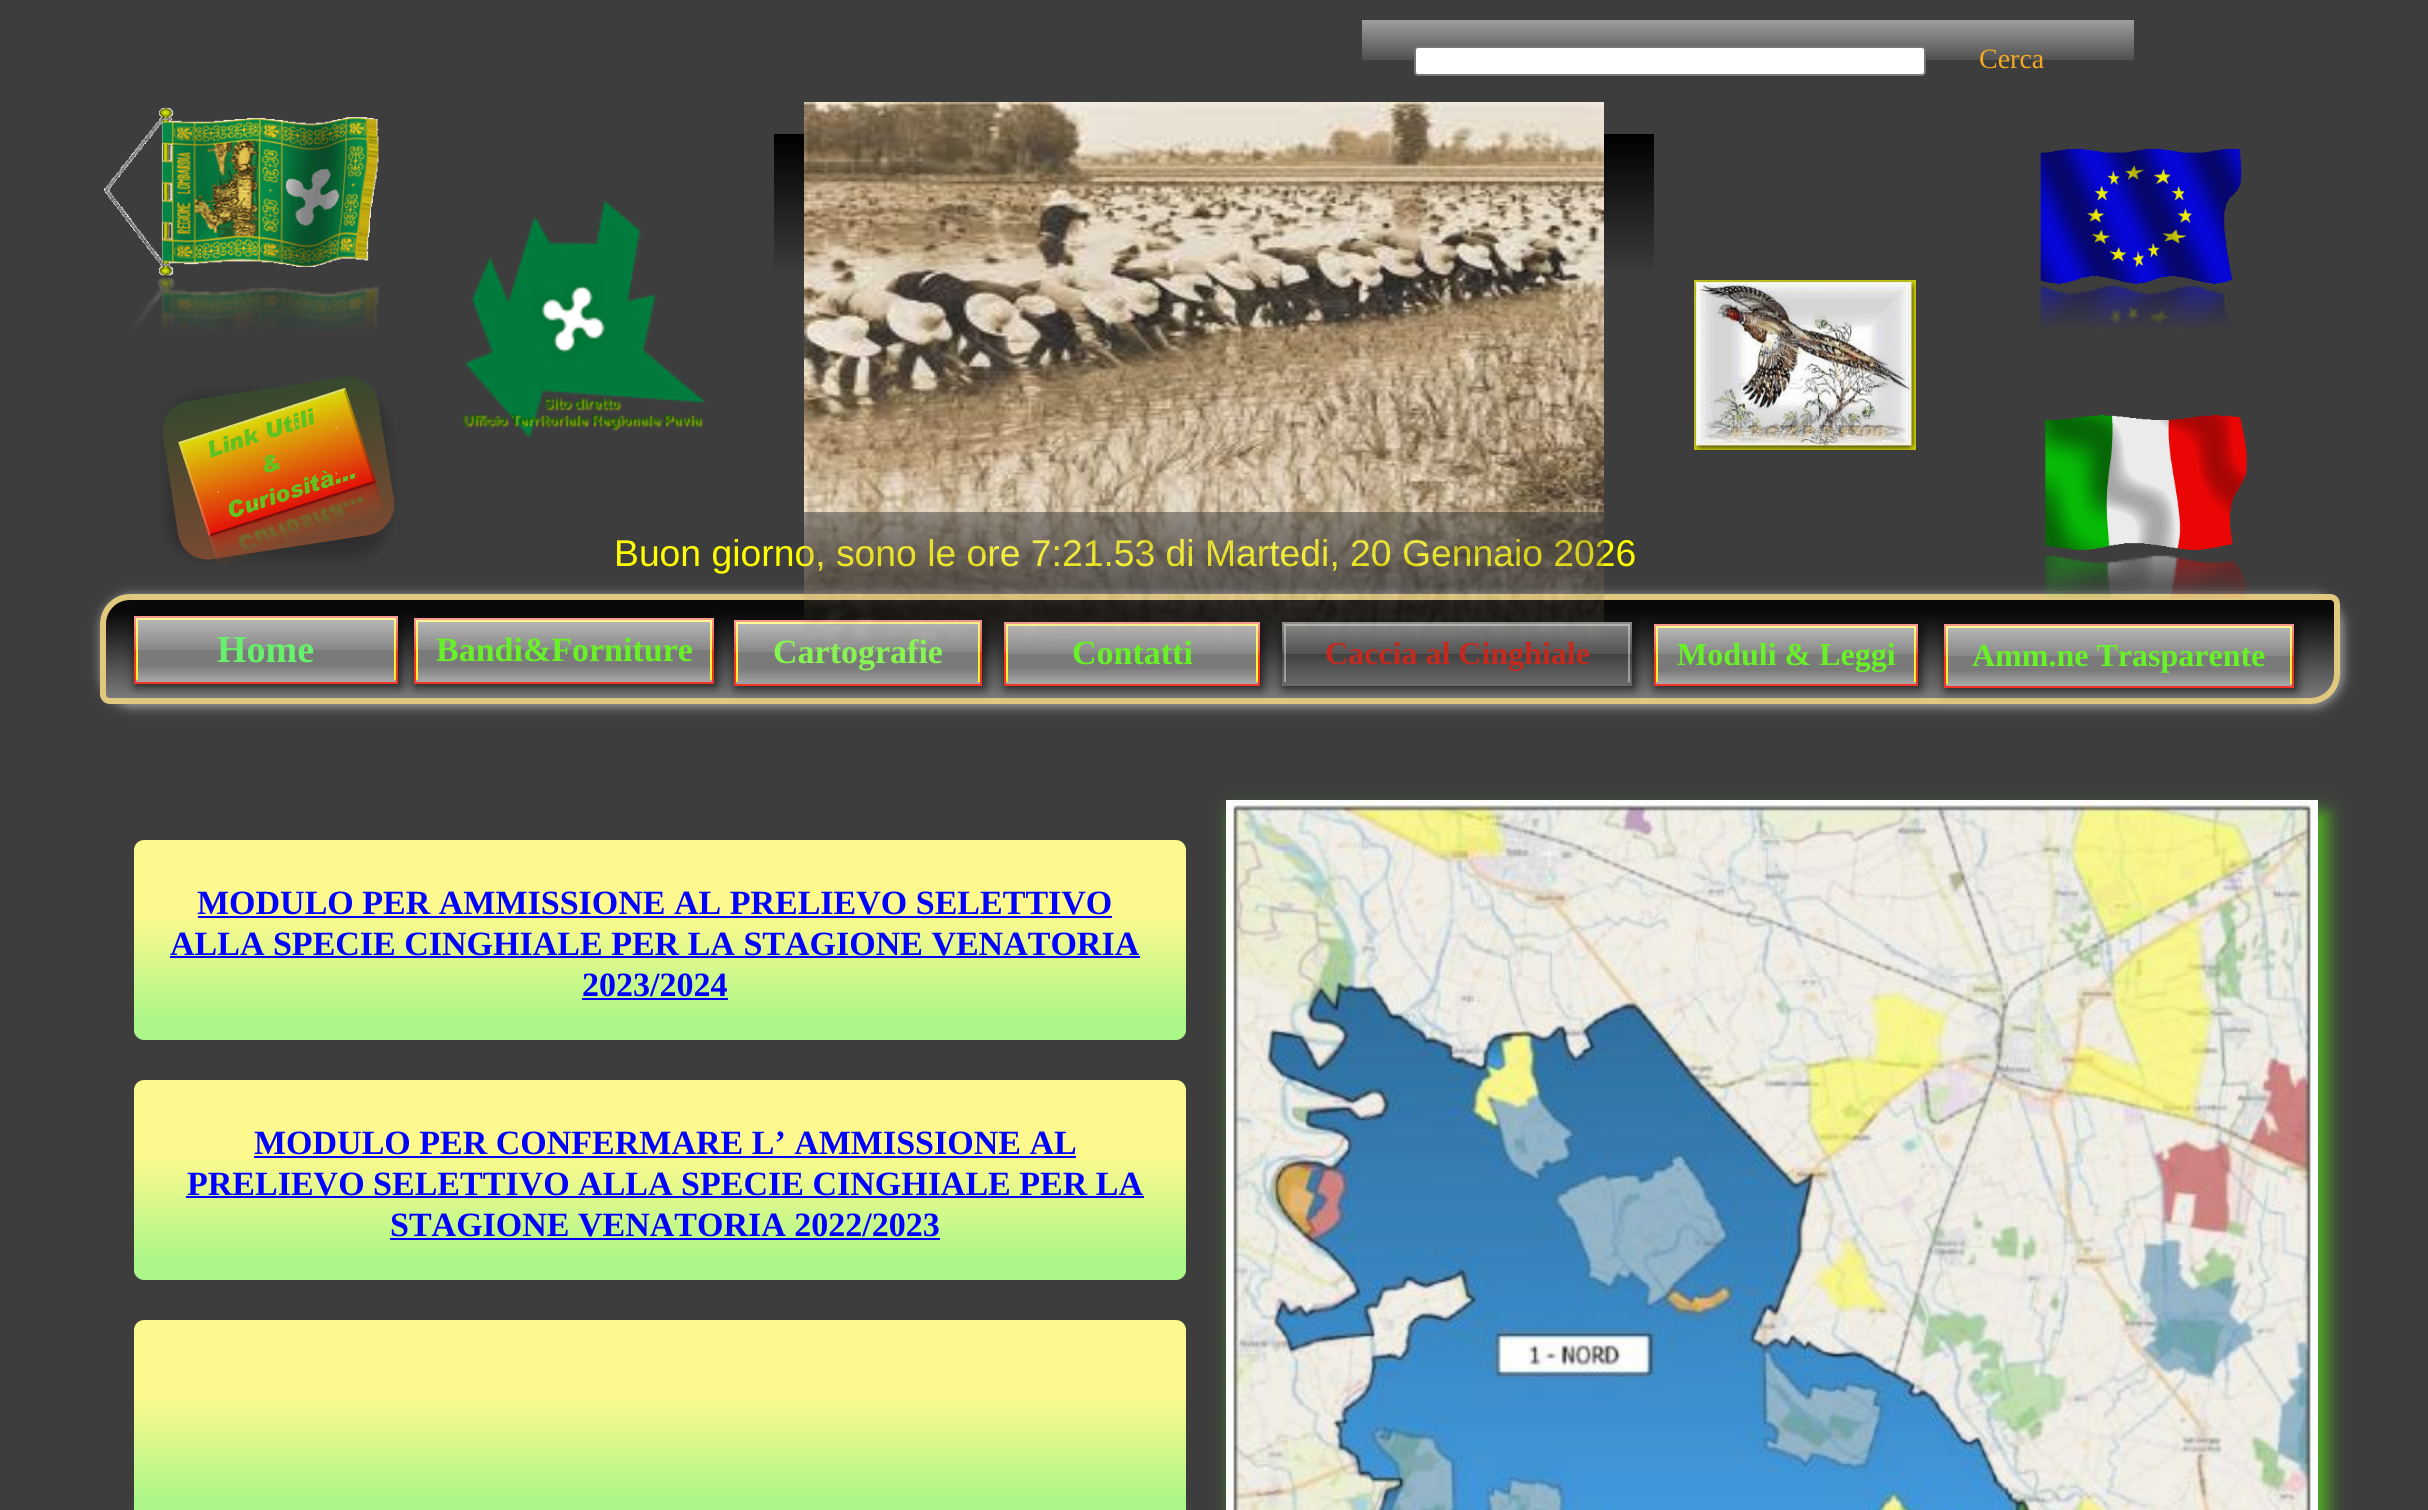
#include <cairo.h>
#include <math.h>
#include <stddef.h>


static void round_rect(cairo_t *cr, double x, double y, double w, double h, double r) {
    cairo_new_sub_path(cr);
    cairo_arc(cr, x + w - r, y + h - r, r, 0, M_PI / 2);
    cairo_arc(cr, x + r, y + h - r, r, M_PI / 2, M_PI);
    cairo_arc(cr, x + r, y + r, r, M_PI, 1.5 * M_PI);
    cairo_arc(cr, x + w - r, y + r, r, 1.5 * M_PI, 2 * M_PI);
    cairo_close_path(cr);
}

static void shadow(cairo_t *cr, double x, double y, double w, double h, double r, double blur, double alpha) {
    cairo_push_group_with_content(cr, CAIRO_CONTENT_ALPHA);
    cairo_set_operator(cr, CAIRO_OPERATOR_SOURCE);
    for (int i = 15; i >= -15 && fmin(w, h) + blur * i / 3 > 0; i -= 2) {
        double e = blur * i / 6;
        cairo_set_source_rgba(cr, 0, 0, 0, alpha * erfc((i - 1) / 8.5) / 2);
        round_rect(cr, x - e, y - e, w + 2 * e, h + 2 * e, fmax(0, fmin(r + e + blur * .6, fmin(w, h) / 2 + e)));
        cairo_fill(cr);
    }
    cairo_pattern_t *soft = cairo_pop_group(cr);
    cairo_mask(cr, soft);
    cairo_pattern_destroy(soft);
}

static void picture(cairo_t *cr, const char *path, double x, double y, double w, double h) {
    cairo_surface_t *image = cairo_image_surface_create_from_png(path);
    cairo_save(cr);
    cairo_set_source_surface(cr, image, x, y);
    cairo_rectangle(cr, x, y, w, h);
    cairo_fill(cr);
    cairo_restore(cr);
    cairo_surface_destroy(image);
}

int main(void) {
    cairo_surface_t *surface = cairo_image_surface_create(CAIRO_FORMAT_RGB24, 2428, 1510);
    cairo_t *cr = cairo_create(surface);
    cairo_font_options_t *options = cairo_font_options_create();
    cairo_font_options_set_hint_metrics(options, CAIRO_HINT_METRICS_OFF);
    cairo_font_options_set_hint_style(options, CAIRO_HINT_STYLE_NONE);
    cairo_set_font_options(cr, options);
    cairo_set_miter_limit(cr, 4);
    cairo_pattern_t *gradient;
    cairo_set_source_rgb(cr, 0.239, 0.239, 0.239);
    cairo_paint(cr);
    gradient = cairo_pattern_create_linear(1362, 20, 1362, 60);
    cairo_pattern_add_color_stop_rgba(gradient, 0, 0.62, 0.62, 0.62, 1);
    cairo_pattern_add_color_stop_rgba(gradient, 1, 0.314, 0.314, 0.314, 1);
    cairo_set_source(cr, gradient);
    cairo_pattern_destroy(gradient);
    cairo_rectangle(cr, 1362, 20, 772, 40);
    cairo_fill(cr);
    cairo_set_source_rgb(cr, 1, 1, 1);
    round_rect(cr, 1415, 47, 510, 28, 3);
    cairo_fill_preserve(cr);
    cairo_set_source_rgb(cr, 0.463, 0.463, 0.463);
    cairo_stroke(cr);
    cairo_select_font_face(cr, "Liberation Serif", CAIRO_FONT_SLANT_NORMAL, CAIRO_FONT_WEIGHT_NORMAL);
    cairo_set_font_size(cr, 28);
    cairo_set_source_rgb(cr, 0.953, 0.667, 0.129);
    cairo_move_to(cr, 1979, 68);
    cairo_show_text(cr, "Cerca");
    picture(cr, "img1.png", 104, 107, 275, 169);
    picture(cr, "img2.png", 131, 278, 249, 52);
    gradient = cairo_pattern_create_linear(840, 136, 840, 276);
    cairo_pattern_add_color_stop_rgba(gradient, 0, 0, 0, 0, 1);
    cairo_pattern_add_color_stop_rgba(gradient, 1, 0.239, 0.239, 0.239, 1);
    cairo_set_source(cr, gradient);
    cairo_pattern_destroy(gradient);
    cairo_rectangle(cr, 774, 134, 880, 136);
    cairo_fill(cr);
    picture(cr, "img3.png", 804, 102, 800, 410);
    cairo_select_font_face(cr, "Liberation Sans", CAIRO_FONT_SLANT_NORMAL, CAIRO_FONT_WEIGHT_NORMAL);
    cairo_set_font_size(cr, 37.3);
    cairo_set_source_rgb(cr, 1, 1, 0);
    cairo_move_to(cr, 614, 566);
    cairo_show_text(cr, "Buon giorno, sono le ore 7:21.53 di Martedi, 20 Gennaio 2026");
    cairo_set_source_rgb(cr, 0.698, 0.698, 0.698);
    shadow(cr, 102, 596, 2240, 110, 30, 6, 1);
    cairo_save(cr);
    cairo_new_path(cr);
    cairo_move_to(cr, 130, 594);
    cairo_line_to(cr, 2330, 594);
    cairo_curve_to(cr, 2335.5, 594, 2340, 598.5, 2340, 604);
    cairo_line_to(cr, 2340, 674);
    cairo_curve_to(cr, 2340, 690.5, 2326.5, 704, 2310, 704);
    cairo_line_to(cr, 110, 704);
    cairo_curve_to(cr, 104.5, 704, 100, 699.5, 100, 694);
    cairo_line_to(cr, 100, 624);
    cairo_curve_to(cr, 100, 607.5, 113.5, 594, 130, 594);
    cairo_close_path(cr);
    cairo_clip(cr);
    gradient = cairo_pattern_create_linear(330, 612, 330, 710);
    cairo_pattern_add_color_stop_rgba(gradient, 0, 0.035, 0.035, 0.035, 1);
    cairo_pattern_add_color_stop_rgba(gradient, 1, 0.545, 0.545, 0.545, 1);
    cairo_set_source(cr, gradient);
    cairo_pattern_destroy(gradient);
    cairo_rectangle(cr, 100, 600, 2240, 98);
    cairo_fill(cr);
    cairo_restore(cr);
    cairo_new_path(cr);
    cairo_move_to(cr, 130, 597);
    cairo_line_to(cr, 2330, 597);
    cairo_curve_to(cr, 2334, 597, 2337, 600, 2337, 604);
    cairo_line_to(cr, 2337, 674);
    cairo_curve_to(cr, 2337, 689, 2325, 701, 2310, 701);
    cairo_line_to(cr, 110, 701);
    cairo_curve_to(cr, 106, 701, 103, 698, 103, 694);
    cairo_line_to(cr, 103, 624);
    cairo_curve_to(cr, 103, 609, 115, 597, 130, 597);
    cairo_close_path(cr);
    cairo_set_source_rgb(cr, 0.882, 0.784, 0.498);
    cairo_set_line_width(cr, 6);
    cairo_stroke(cr);
    cairo_set_source_rgb(cr, 0, 0, 0);
    shadow(cr, 736, 622, 248, 66, 0, 6, 0.8);
    gradient = cairo_pattern_create_linear(736, 668, 736, 688);
    cairo_pattern_add_color_stop_rgba(gradient, 0, 0.478, 0.478, 0.478, 1);
    cairo_pattern_add_color_stop_rgba(gradient, 1, 0.678, 0.678, 0.678, 1);
    cairo_set_source(cr, gradient);
    cairo_pattern_destroy(gradient);
    cairo_rectangle(cr, 736, 624, 244, 60);
    cairo_fill(cr);
    cairo_rectangle(cr, 735, 621, 246, 64);
    cairo_set_source_rgb(cr, 0.953, 0.204, 0.157);
    cairo_set_line_width(cr, 2);
    cairo_stroke(cr);
    cairo_set_source_rgb(cr, 0.996, 0.957, 0.192);
    cairo_rectangle(cr, 736, 622, 244, 2);
    cairo_fill(cr);
    cairo_rectangle(cr, 978, 622, 2, 60);
    cairo_fill(cr);
    cairo_rectangle(cr, 736, 622, 2, 60);
    cairo_fill(cr);
    gradient = cairo_pattern_create_linear(734, 620, 734, 652);
    cairo_pattern_add_color_stop_rgba(gradient, 0, 1, 1, 1, 0.5);
    cairo_pattern_add_color_stop_rgba(gradient, 1, 1, 1, 1, 0.1);
    cairo_set_source(cr, gradient);
    cairo_pattern_destroy(gradient);
    cairo_rectangle(cr, 734, 620, 248, 32);
    cairo_fill(cr);
    cairo_select_font_face(cr, "Liberation Serif", CAIRO_FONT_SLANT_NORMAL, CAIRO_FONT_WEIGHT_BOLD);
    cairo_set_font_size(cr, 34);
    cairo_set_source_rgb(cr, 0.529, 0.957, 0.325);
    cairo_move_to(cr, 773, 663);
    cairo_show_text(cr, "Cartografie");
    cairo_set_source_rgb(cr, 0, 0, 0);
    shadow(cr, 1006, 624, 256, 64, 0, 6, 0.8);
    gradient = cairo_pattern_create_linear(1006, 668, 1006, 688);
    cairo_pattern_add_color_stop_rgba(gradient, 0, 0.478, 0.478, 0.478, 1);
    cairo_pattern_add_color_stop_rgba(gradient, 1, 0.718, 0.718, 0.718, 1);
    cairo_set_source(cr, gradient);
    cairo_pattern_destroy(gradient);
    cairo_rectangle(cr, 1006, 626, 252, 58);
    cairo_fill(cr);
    cairo_rectangle(cr, 1005, 623, 254, 62);
    cairo_set_source_rgb(cr, 0.953, 0.204, 0.157);
    cairo_stroke(cr);
    cairo_set_source_rgb(cr, 0.996, 0.957, 0.192);
    cairo_rectangle(cr, 1006, 624, 252, 2);
    cairo_fill(cr);
    cairo_rectangle(cr, 1256, 624, 2, 58);
    cairo_fill(cr);
    cairo_rectangle(cr, 1006, 624, 2, 58);
    cairo_fill(cr);
    gradient = cairo_pattern_create_linear(1004, 622, 1004, 654);
    cairo_pattern_add_color_stop_rgba(gradient, 0, 1, 1, 1, 0.5);
    cairo_pattern_add_color_stop_rgba(gradient, 1, 1, 1, 1, 0.1);
    cairo_set_source(cr, gradient);
    cairo_pattern_destroy(gradient);
    cairo_rectangle(cr, 1004, 622, 256, 32);
    cairo_fill(cr);
    cairo_set_source_rgb(cr, 0.412, 0.945, 0.157);
    cairo_move_to(cr, 1072, 664);
    cairo_show_text(cr, "Contatti");
    cairo_save(cr);
    cairo_set_fill_rule(cr, CAIRO_FILL_RULE_EVEN_ODD);
    cairo_new_path(cr);
    cairo_move_to(cr, 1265, 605);
    cairo_line_to(cr, 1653, 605);
    cairo_line_to(cr, 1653, 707);
    cairo_line_to(cr, 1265, 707);
    cairo_close_path(cr);
    cairo_move_to(cr, 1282, 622);
    cairo_line_to(cr, 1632, 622);
    cairo_line_to(cr, 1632, 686);
    cairo_line_to(cr, 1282, 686);
    cairo_close_path(cr);
    cairo_clip(cr);
    cairo_set_source_rgb(cr, 0, 0, 0);
    shadow(cr, 1284, 624, 350, 64, 0, 6, 0.8);
    cairo_restore(cr);
    cairo_set_source_rgb(cr, 0.463, 0.463, 0.463);
    cairo_new_path(cr);
    cairo_move_to(cr, 1284, 624);
    cairo_line_to(cr, 1630, 624);
    cairo_line_to(cr, 1628, 626);
    cairo_line_to(cr, 1286, 626);
    cairo_close_path(cr);
    cairo_fill(cr);
    cairo_set_source_rgba(cr, 1, 1, 1, 0.4);
    cairo_new_path(cr);
    cairo_move_to(cr, 1630, 624);
    cairo_line_to(cr, 1630, 682);
    cairo_line_to(cr, 1628, 682);
    cairo_line_to(cr, 1628, 626);
    cairo_close_path(cr);
    cairo_fill(cr);
    cairo_new_path(cr);
    cairo_move_to(cr, 1284, 682);
    cairo_line_to(cr, 1284, 624);
    cairo_line_to(cr, 1286, 626);
    cairo_line_to(cr, 1286, 682);
    cairo_close_path(cr);
    cairo_fill(cr);
    gradient = cairo_pattern_create_linear(1282, 622, 1282, 654);
    cairo_pattern_add_color_stop_rgba(gradient, 0, 1, 1, 1, 0.5);
    cairo_pattern_add_color_stop_rgba(gradient, 1, 1, 1, 1, 0.1);
    cairo_set_source(cr, gradient);
    cairo_pattern_destroy(gradient);
    cairo_rectangle(cr, 1282, 622, 350, 32);
    cairo_fill(cr);
    cairo_set_font_size(cr, 32);
    cairo_set_source_rgb(cr, 0.761, 0.165, 0.125);
    cairo_move_to(cr, 1325, 664);
    cairo_show_text(cr, "Caccia al Cinghiale");
    picture(cr, "img4.png", 804, 512, 800, 130);
    cairo_set_source_rgb(cr, 0.161, 0.161, 0.161);
    shadow(cr, 168, 396, 218, 160, 30, 8, 0.8);
    gradient = cairo_pattern_create_linear(163, 409, 187, 563);
    cairo_pattern_add_color_stop_rgba(gradient, 0, 0.216, 0.286, 0.18, 1);
    cairo_pattern_add_color_stop_rgba(gradient, 1, 0.478, 0.286, 0.196, 1);
    cairo_set_source(cr, gradient);
    cairo_pattern_destroy(gradient);
    cairo_new_path(cr);
    cairo_move_to(cr, 188, 401);
    cairo_line_to(cr, 344, 377);
    cairo_curve_to(cr, 360, 374, 375, 385, 378, 402);
    cairo_line_to(cr, 394, 500);
    cairo_curve_to(cr, 396, 517, 385, 532, 369, 535);
    cairo_line_to(cr, 213, 559);
    cairo_curve_to(cr, 196, 562, 181, 551, 178, 534);
    cairo_line_to(cr, 163, 436);
    cairo_curve_to(cr, 160, 419, 171, 404, 188, 401);
    cairo_close_path(cr);
    cairo_fill(cr);
    picture(cr, "img5.png", 462, 200, 244, 239);
    picture(cr, "img6.png", 1694, 280, 222, 170);
    picture(cr, "img7.png", 2040, 149, 202, 135);
    picture(cr, "img8.png", 2039, 286, 192, 43);
    picture(cr, "img9.png", 178, 387, 198, 150);
    picture(cr, "img10.png", 209, 483, 175, 83);
    picture(cr, "img11.png", 2045, 415, 202, 135);
    picture(cr, "img12.png", 2044, 555, 204, 44);
    cairo_set_source_rgb(cr, 0, 0, 0);
    shadow(cr, 136, 618, 264, 68, 0, 6, 0.8);
    gradient = cairo_pattern_create_linear(136, 666, 136, 686);
    cairo_pattern_add_color_stop_rgba(gradient, 0, 0.478, 0.478, 0.478, 1);
    cairo_pattern_add_color_stop_rgba(gradient, 1, 0.718, 0.718, 0.718, 1);
    cairo_set_source(cr, gradient);
    cairo_pattern_destroy(gradient);
    cairo_rectangle(cr, 136, 620, 260, 62);
    cairo_fill(cr);
    cairo_rectangle(cr, 135, 617, 262, 66);
    cairo_set_source_rgb(cr, 0.953, 0.204, 0.157);
    cairo_stroke(cr);
    cairo_set_source_rgb(cr, 0.996, 0.957, 0.192);
    cairo_rectangle(cr, 136, 618, 260, 2);
    cairo_fill(cr);
    cairo_rectangle(cr, 394, 618, 2, 62);
    cairo_fill(cr);
    cairo_rectangle(cr, 136, 618, 2, 62);
    cairo_fill(cr);
    gradient = cairo_pattern_create_linear(134, 616, 134, 650);
    cairo_pattern_add_color_stop_rgba(gradient, 0, 1, 1, 1, 0.5);
    cairo_pattern_add_color_stop_rgba(gradient, 1, 1, 1, 1, 0.1);
    cairo_set_source(cr, gradient);
    cairo_pattern_destroy(gradient);
    cairo_rectangle(cr, 134, 616, 264, 34);
    cairo_fill(cr);
    cairo_set_font_size(cr, 38);
    cairo_set_source_rgb(cr, 0.404, 0.949, 0.42);
    cairo_move_to(cr, 217, 662);
    cairo_show_text(cr, "Home");
    cairo_set_source_rgb(cr, 0, 0, 0);
    shadow(cr, 416, 620, 300, 66, 0, 6, 0.8);
    gradient = cairo_pattern_create_linear(416, 666, 416, 686);
    cairo_pattern_add_color_stop_rgba(gradient, 0, 0.478, 0.478, 0.478, 1);
    cairo_pattern_add_color_stop_rgba(gradient, 1, 0.718, 0.718, 0.718, 1);
    cairo_set_source(cr, gradient);
    cairo_pattern_destroy(gradient);
    cairo_rectangle(cr, 416, 622, 296, 60);
    cairo_fill(cr);
    cairo_rectangle(cr, 415, 619, 298, 64);
    cairo_set_source_rgb(cr, 0.953, 0.204, 0.157);
    cairo_stroke(cr);
    cairo_set_source_rgb(cr, 0.996, 0.957, 0.192);
    cairo_rectangle(cr, 416, 620, 296, 2);
    cairo_fill(cr);
    cairo_rectangle(cr, 710, 620, 2, 60);
    cairo_fill(cr);
    cairo_rectangle(cr, 416, 620, 2, 60);
    cairo_fill(cr);
    gradient = cairo_pattern_create_linear(414, 618, 414, 650);
    cairo_pattern_add_color_stop_rgba(gradient, 0, 1, 1, 1, 0.5);
    cairo_pattern_add_color_stop_rgba(gradient, 1, 1, 1, 1, 0.1);
    cairo_set_source(cr, gradient);
    cairo_pattern_destroy(gradient);
    cairo_rectangle(cr, 414, 618, 300, 32);
    cairo_fill(cr);
    cairo_set_font_size(cr, 34);
    cairo_set_source_rgb(cr, 0.412, 0.945, 0.157);
    cairo_move_to(cr, 436, 661);
    cairo_show_text(cr, "Bandi&Forniture");
    cairo_set_source_rgb(cr, 0, 0, 0);
    shadow(cr, 1656, 626, 264, 62, 0, 6, 0.8);
    gradient = cairo_pattern_create_linear(1656, 670, 1656, 688);
    cairo_pattern_add_color_stop_rgba(gradient, 0, 0.478, 0.478, 0.478, 1);
    cairo_pattern_add_color_stop_rgba(gradient, 1, 0.718, 0.718, 0.718, 1);
    cairo_set_source(cr, gradient);
    cairo_pattern_destroy(gradient);
    cairo_rectangle(cr, 1656, 628, 260, 56);
    cairo_fill(cr);
    cairo_rectangle(cr, 1655, 625, 262, 60);
    cairo_set_source_rgb(cr, 0.953, 0.204, 0.157);
    cairo_stroke(cr);
    cairo_set_source_rgb(cr, 0.996, 0.957, 0.192);
    cairo_rectangle(cr, 1656, 626, 260, 2);
    cairo_fill(cr);
    cairo_rectangle(cr, 1914, 626, 2, 56);
    cairo_fill(cr);
    cairo_rectangle(cr, 1656, 626, 2, 56);
    cairo_fill(cr);
    gradient = cairo_pattern_create_linear(1654, 624, 1654, 654);
    cairo_pattern_add_color_stop_rgba(gradient, 0, 1, 1, 1, 0.5);
    cairo_pattern_add_color_stop_rgba(gradient, 1, 1, 1, 1, 0.1);
    cairo_set_source(cr, gradient);
    cairo_pattern_destroy(gradient);
    cairo_rectangle(cr, 1654, 624, 264, 30);
    cairo_fill(cr);
    cairo_set_font_size(cr, 32);
    cairo_set_source_rgb(cr, 0.412, 0.945, 0.157);
    cairo_move_to(cr, 1677, 665);
    cairo_show_text(cr, "Moduli & Leggi");
    cairo_set_source_rgb(cr, 0, 0, 0);
    shadow(cr, 1946, 626, 350, 64, 0, 6, 0.8);
    gradient = cairo_pattern_create_linear(1946, 670, 1946, 690);
    cairo_pattern_add_color_stop_rgba(gradient, 0, 0.478, 0.478, 0.478, 1);
    cairo_pattern_add_color_stop_rgba(gradient, 1, 0.718, 0.718, 0.718, 1);
    cairo_set_source(cr, gradient);
    cairo_pattern_destroy(gradient);
    cairo_rectangle(cr, 1946, 628, 346, 58);
    cairo_fill(cr);
    cairo_rectangle(cr, 1945, 625, 348, 62);
    cairo_set_source_rgb(cr, 0.953, 0.204, 0.157);
    cairo_stroke(cr);
    cairo_set_source_rgb(cr, 0.996, 0.957, 0.192);
    cairo_rectangle(cr, 1946, 626, 346, 2);
    cairo_fill(cr);
    cairo_rectangle(cr, 2290, 626, 2, 58);
    cairo_fill(cr);
    cairo_rectangle(cr, 1946, 626, 2, 58);
    cairo_fill(cr);
    gradient = cairo_pattern_create_linear(1944, 624, 1944, 656);
    cairo_pattern_add_color_stop_rgba(gradient, 0, 1, 1, 1, 0.5);
    cairo_pattern_add_color_stop_rgba(gradient, 1, 1, 1, 1, 0.1);
    cairo_set_source(cr, gradient);
    cairo_pattern_destroy(gradient);
    cairo_rectangle(cr, 1944, 624, 350, 32);
    cairo_fill(cr);
    cairo_set_source_rgb(cr, 0.412, 0.945, 0.157);
    cairo_move_to(cr, 1972, 666);
    cairo_show_text(cr, "Amm.ne Trasparente");
    gradient = cairo_pattern_create_linear(402, 914, 402, 1020);
    cairo_pattern_add_color_stop_rgba(gradient, 0, 0.996, 0.976, 0.557, 1);
    cairo_pattern_add_color_stop_rgba(gradient, 1, 0.678, 0.969, 0.537, 1);
    cairo_set_source(cr, gradient);
    cairo_pattern_destroy(gradient);
    round_rect(cr, 134, 840, 1052, 200, 10);
    cairo_fill(cr);
    cairo_set_source_rgb(cr, 0.329, 0.757, 0.125);
    shadow(cr, 1234, 814, 1092, 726, 0, 10, 1);
    picture(cr, "img13.png", 1226, 800, 1092, 710);
    cairo_set_font_size(cr, 34);
    cairo_set_source_rgb(cr, 0, 0, 1);
    cairo_move_to(cr, 197, 914);
    cairo_show_text(cr, "MODULO PER AMMISSIONE AL PRELIEVO SELETTIVO");
    cairo_rectangle(cr, 198, 916, 914, 2);
    cairo_fill(cr);
    cairo_move_to(cr, 170, 955);
    cairo_show_text(cr, "ALLA SPECIE CINGHIALE PER LA STAGIONE VENATORIA");
    cairo_rectangle(cr, 170, 956, 970, 2);
    cairo_fill(cr);
    cairo_move_to(cr, 582, 996);
    cairo_show_text(cr, "2023/2024");
    cairo_rectangle(cr, 582, 998, 146, 2);
    cairo_fill(cr);
    gradient = cairo_pattern_create_linear(402, 1154, 402, 1260);
    cairo_pattern_add_color_stop_rgba(gradient, 0, 0.996, 0.976, 0.557, 1);
    cairo_pattern_add_color_stop_rgba(gradient, 1, 0.678, 0.969, 0.537, 1);
    cairo_set_source(cr, gradient);
    cairo_pattern_destroy(gradient);
    round_rect(cr, 134, 1080, 1052, 200, 10);
    cairo_fill(cr);
    cairo_set_source_rgb(cr, 0, 0, 1);
    cairo_move_to(cr, 254, 1154);
    cairo_show_text(cr, "MODULO PER CONFERMARE L’ AMMISSIONE AL");
    cairo_rectangle(cr, 254, 1156, 822, 2);
    cairo_fill(cr);
    cairo_move_to(cr, 187, 1195);
    cairo_show_text(cr, "PRELIEVO SELETTIVO ALLA SPECIE CINGHIALE PER LA");
    cairo_rectangle(cr, 186, 1196, 958, 2);
    cairo_fill(cr);
    cairo_move_to(cr, 390, 1236);
    cairo_show_text(cr, "STAGIONE VENATORIA 2022/2023");
    cairo_rectangle(cr, 390, 1238, 550, 2);
    cairo_fill(cr);
    gradient = cairo_pattern_create_linear(402, 1394, 402, 1500);
    cairo_pattern_add_color_stop_rgba(gradient, 0, 0.996, 0.976, 0.557, 1);
    cairo_pattern_add_color_stop_rgba(gradient, 1, 0.678, 0.969, 0.537, 1);
    cairo_set_source(cr, gradient);
    cairo_pattern_destroy(gradient);
    round_rect(cr, 134, 1320, 1052, 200, 10);
    cairo_fill(cr);
    cairo_surface_write_to_png(surface, "page.png");
    cairo_font_options_destroy(options);
    cairo_destroy(cr);
    cairo_surface_destroy(surface);
    return 0;
}
